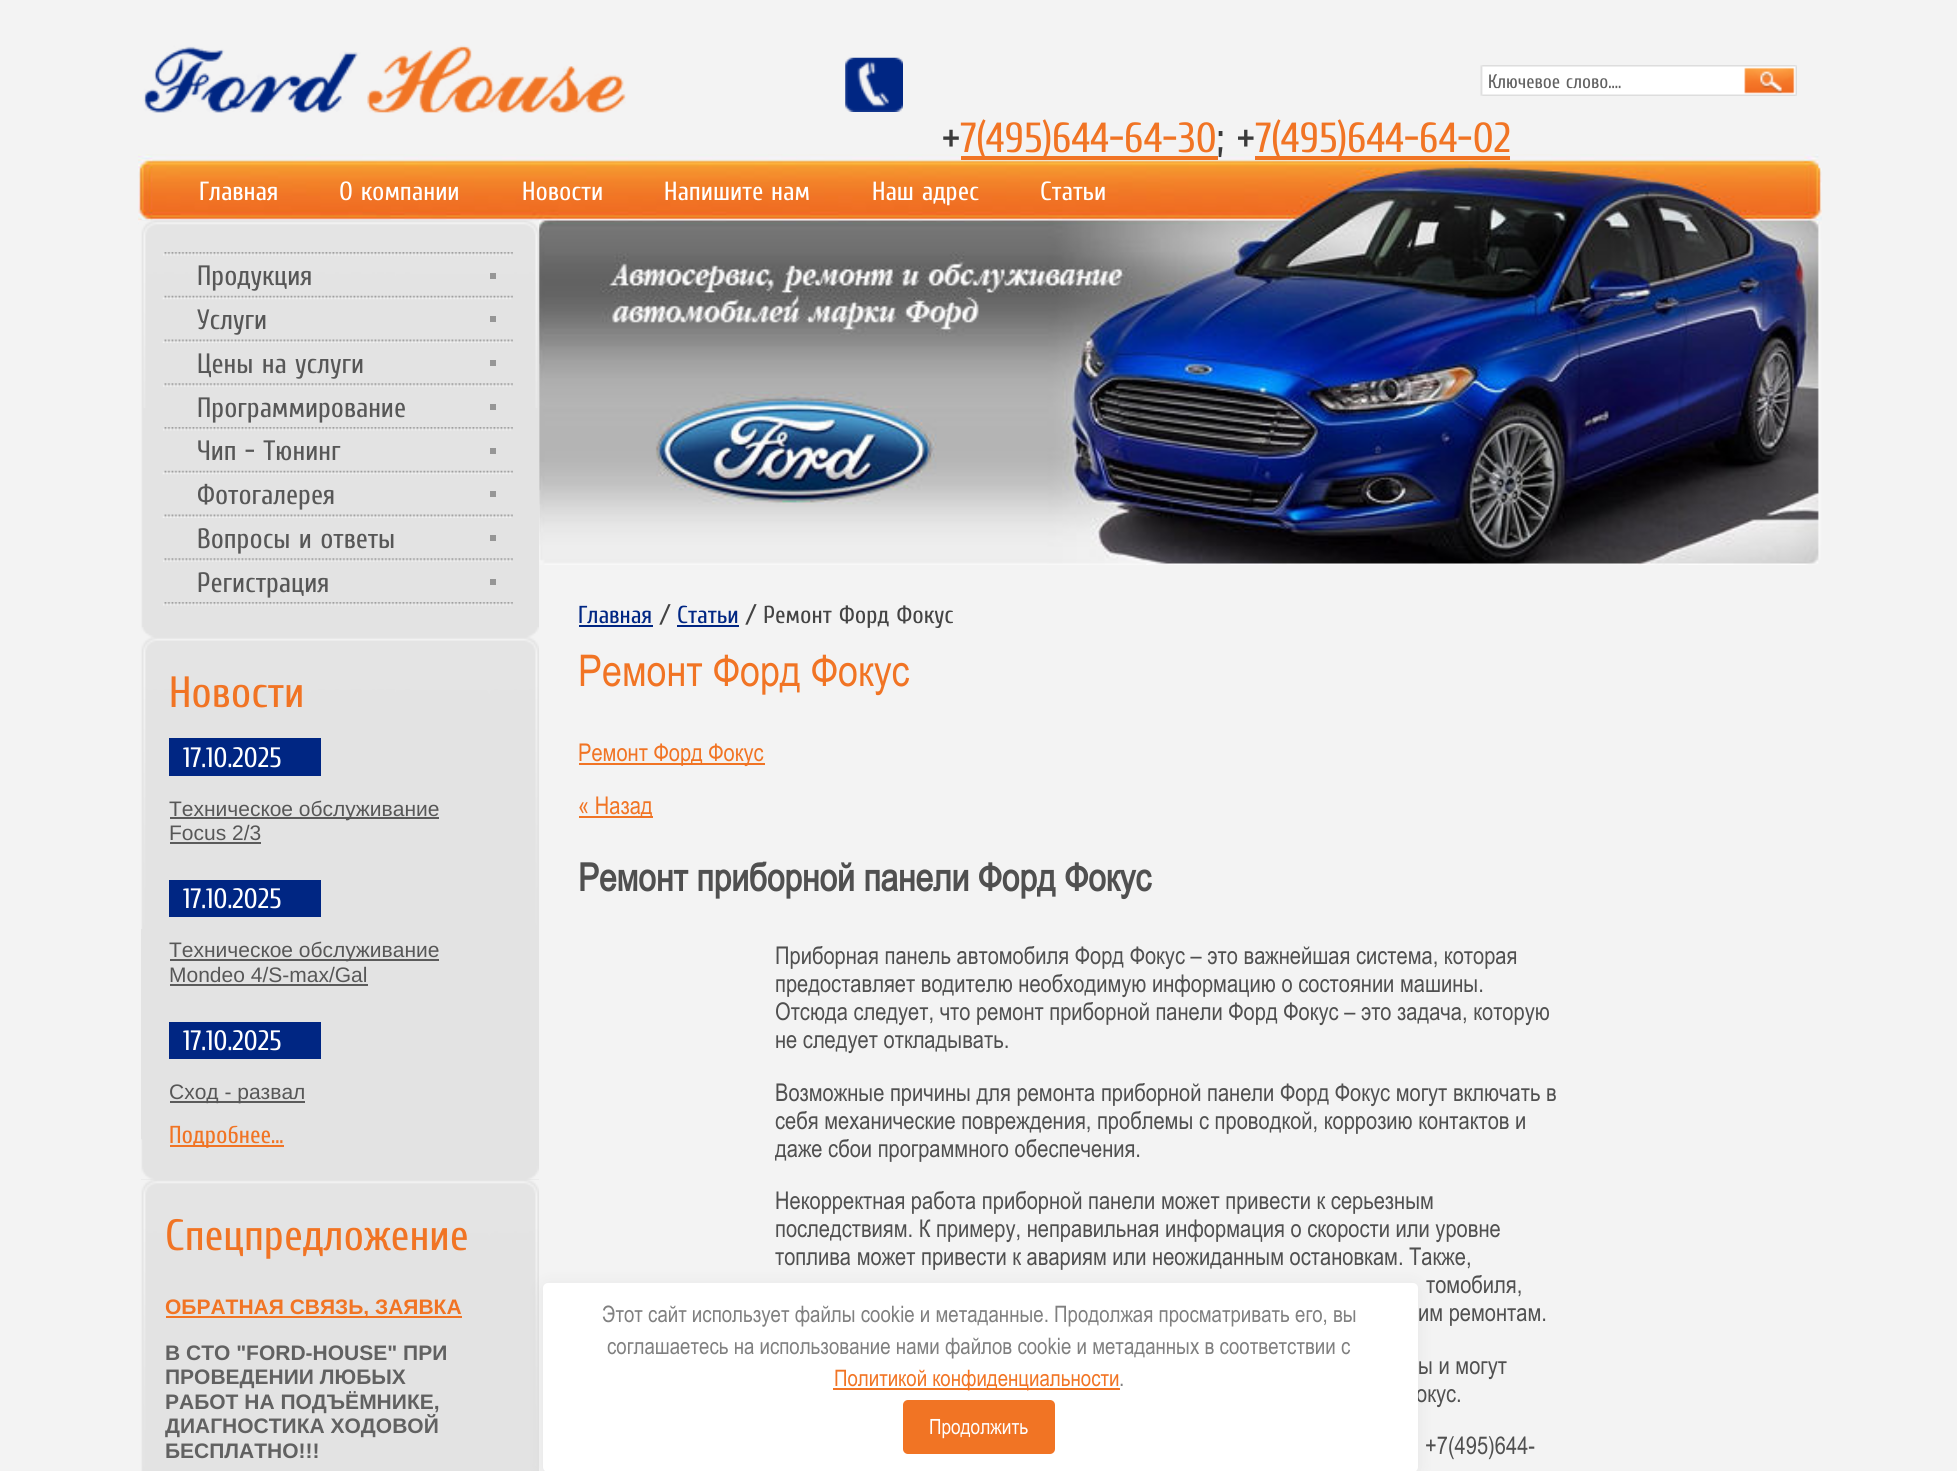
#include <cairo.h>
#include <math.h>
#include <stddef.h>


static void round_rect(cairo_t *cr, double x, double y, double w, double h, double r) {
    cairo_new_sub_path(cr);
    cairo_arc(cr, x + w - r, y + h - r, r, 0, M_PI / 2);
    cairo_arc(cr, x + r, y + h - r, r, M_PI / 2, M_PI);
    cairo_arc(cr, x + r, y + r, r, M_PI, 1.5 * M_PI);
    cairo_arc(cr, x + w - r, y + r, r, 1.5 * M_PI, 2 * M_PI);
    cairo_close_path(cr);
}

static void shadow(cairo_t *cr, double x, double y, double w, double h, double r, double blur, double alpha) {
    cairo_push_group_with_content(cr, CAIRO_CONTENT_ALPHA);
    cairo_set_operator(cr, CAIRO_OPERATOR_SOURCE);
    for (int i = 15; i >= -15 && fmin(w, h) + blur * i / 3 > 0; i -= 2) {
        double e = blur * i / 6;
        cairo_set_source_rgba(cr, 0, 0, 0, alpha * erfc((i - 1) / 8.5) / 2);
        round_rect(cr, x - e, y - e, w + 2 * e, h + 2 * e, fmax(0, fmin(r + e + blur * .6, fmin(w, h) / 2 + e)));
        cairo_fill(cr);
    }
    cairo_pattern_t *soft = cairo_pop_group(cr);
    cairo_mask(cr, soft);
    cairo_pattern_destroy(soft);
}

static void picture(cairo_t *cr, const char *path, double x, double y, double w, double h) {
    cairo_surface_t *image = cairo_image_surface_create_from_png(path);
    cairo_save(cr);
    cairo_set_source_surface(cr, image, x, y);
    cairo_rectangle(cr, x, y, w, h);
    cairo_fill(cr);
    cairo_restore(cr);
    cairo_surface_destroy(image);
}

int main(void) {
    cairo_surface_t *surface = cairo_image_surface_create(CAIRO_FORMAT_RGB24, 1957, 1471);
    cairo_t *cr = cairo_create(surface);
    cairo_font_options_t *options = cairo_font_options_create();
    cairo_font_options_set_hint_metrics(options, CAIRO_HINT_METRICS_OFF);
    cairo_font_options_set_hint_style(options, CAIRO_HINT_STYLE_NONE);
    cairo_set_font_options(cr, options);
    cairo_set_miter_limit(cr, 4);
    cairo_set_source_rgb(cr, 0.953, 0.953, 0.953);
    cairo_paint(cr);
    picture(cr, "img1.png", 138, 154, 1684, 411);
    picture(cr, "img2.png", 143, 45, 483, 68);
    picture(cr, "img3.png", 1480, 65, 317, 31);
    cairo_select_font_face(cr, "Cuprum", CAIRO_FONT_SLANT_NORMAL, CAIRO_FONT_WEIGHT_NORMAL);
    cairo_set_font_size(cr, 19.25);
    cairo_set_source_rgb(cr, 0.38, 0.38, 0.38);
    cairo_move_to(cr, 1488, 88);
    cairo_show_text(cr, "Ключевое слово....");
    picture(cr, "img4.png", 845, 57, 58, 55);
    cairo_set_font_size(cr, 42);
    cairo_set_source_rgb(cr, 0.231, 0.231, 0.231);
    cairo_move_to(cr, 942, 152);
    cairo_show_text(cr, "+");
    cairo_set_source_rgb(cr, 0.945, 0.455, 0.141);
    cairo_rectangle(cr, 961, 156, 257, 4);
    cairo_fill(cr);
    cairo_move_to(cr, 960, 152);
    cairo_show_text(cr, "7(495)644-64-30");
    cairo_set_source_rgb(cr, 0.231, 0.231, 0.231);
    cairo_move_to(cr, 1217, 152);
    cairo_show_text(cr, "; +");
    cairo_set_source_rgb(cr, 0.945, 0.455, 0.141);
    cairo_rectangle(cr, 1255, 156, 255, 4);
    cairo_fill(cr);
    cairo_move_to(cr, 1255, 152);
    cairo_show_text(cr, "7(495)644-64-02");
    cairo_set_font_size(cr, 26.25);
    cairo_set_source_rgb(cr, 1, 1, 1);
    cairo_move_to(cr, 199, 200);
    cairo_show_text(cr, "Главная");
    cairo_move_to(cr, 339, 200);
    cairo_show_text(cr, "О компании");
    cairo_move_to(cr, 522, 200);
    cairo_show_text(cr, "Новости");
    cairo_move_to(cr, 664, 200);
    cairo_show_text(cr, "Напишите нам");
    cairo_move_to(cr, 872, 200);
    cairo_show_text(cr, "Наш адрес");
    cairo_move_to(cr, 1040, 200);
    cairo_show_text(cr, "Статьи");
    picture(cr, "img5.png", 138, 220, 401, 417);
    picture(cr, "img6.png", 141, 220, 398, 188);
    picture(cr, "img7.png", 141, 627, 398, 10);
    picture(cr, "img8.png", 163, 252, 350, 4);
    picture(cr, "img9.png", 162, 295, 351, 5);
    cairo_set_source_rgb(cr, 0.588, 0.588, 0.588);
    cairo_rectangle(cr, 490, 273, 6, 6);
    cairo_fill(cr);
    cairo_set_font_size(cr, 28);
    cairo_set_source_rgb(cr, 0.341, 0.341, 0.341);
    cairo_move_to(cr, 197, 285);
    cairo_show_text(cr, "Продукция");
    picture(cr, "img10.png", 162, 339, 351, 4);
    cairo_set_source_rgb(cr, 0.588, 0.588, 0.588);
    cairo_rectangle(cr, 490, 316, 6, 6);
    cairo_fill(cr);
    cairo_set_source_rgb(cr, 0.341, 0.341, 0.341);
    cairo_move_to(cr, 197, 329);
    cairo_show_text(cr, "Услуги");
    picture(cr, "img11.png", 163, 383, 350, 4);
    cairo_set_source_rgb(cr, 0.588, 0.588, 0.588);
    cairo_rectangle(cr, 490, 360, 6, 6);
    cairo_fill(cr);
    cairo_set_source_rgb(cr, 0.341, 0.341, 0.341);
    cairo_move_to(cr, 197, 373);
    cairo_show_text(cr, "Цены на услуги");
    picture(cr, "img12.png", 163, 427, 350, 4);
    cairo_set_source_rgb(cr, 0.588, 0.588, 0.588);
    cairo_rectangle(cr, 490, 404, 6, 6);
    cairo_fill(cr);
    cairo_set_source_rgb(cr, 0.341, 0.341, 0.341);
    cairo_move_to(cr, 197, 417);
    cairo_show_text(cr, "Программирование");
    picture(cr, "img9.png", 162, 470, 351, 5);
    cairo_set_source_rgb(cr, 0.588, 0.588, 0.588);
    cairo_rectangle(cr, 490, 448, 6, 6);
    cairo_fill(cr);
    cairo_set_source_rgb(cr, 0.341, 0.341, 0.341);
    cairo_move_to(cr, 197, 460);
    cairo_show_text(cr, "Чип - Тюнинг");
    picture(cr, "img10.png", 162, 514, 351, 4);
    cairo_set_source_rgb(cr, 0.588, 0.588, 0.588);
    cairo_rectangle(cr, 490, 491, 6, 6);
    cairo_fill(cr);
    cairo_set_source_rgb(cr, 0.341, 0.341, 0.341);
    cairo_move_to(cr, 197, 504);
    cairo_show_text(cr, "Фотогалерея");
    picture(cr, "img11.png", 163, 558, 350, 4);
    cairo_set_source_rgb(cr, 0.588, 0.588, 0.588);
    cairo_rectangle(cr, 490, 535, 6, 6);
    cairo_fill(cr);
    cairo_set_source_rgb(cr, 0.341, 0.341, 0.341);
    cairo_move_to(cr, 197, 548);
    cairo_show_text(cr, "Вопросы и ответы");
    picture(cr, "img12.png", 163, 602, 350, 4);
    cairo_set_source_rgb(cr, 0.588, 0.588, 0.588);
    cairo_rectangle(cr, 490, 579, 6, 6);
    cairo_fill(cr);
    cairo_set_source_rgb(cr, 0.341, 0.341, 0.341);
    cairo_move_to(cr, 197, 592);
    cairo_show_text(cr, "Регистрация");
    cairo_set_source_rgb(cr, 0.89, 0.89, 0.89);
    cairo_rectangle(cr, 141, 929, 398, 211);
    cairo_fill(cr);
    picture(cr, "img13.png", 141, 637, 398, 292);
    picture(cr, "img14.png", 141, 1139, 398, 40);
    cairo_set_font_size(cr, 43.75);
    cairo_set_source_rgb(cr, 0.945, 0.455, 0.141);
    cairo_move_to(cr, 169, 707);
    cairo_show_text(cr, "Новости");
    cairo_set_source_rgb(cr, 0, 0.149, 0.514);
    cairo_rectangle(cr, 169, 738, 152, 38);
    cairo_fill(cr);
    cairo_set_font_size(cr, 28);
    cairo_set_source_rgb(cr, 1, 1, 1);
    cairo_move_to(cr, 183, 767);
    cairo_show_text(cr, "17.10.2025");
    cairo_set_source_rgb(cr, 0.357, 0.357, 0.357);
    cairo_rectangle(cr, 170, 817, 269, 2);
    cairo_fill(cr);
    cairo_select_font_face(cr, "Liberation Sans", CAIRO_FONT_SLANT_NORMAL, CAIRO_FONT_WEIGHT_NORMAL);
    cairo_set_font_size(cr, 21);
    cairo_set_source_rgb(cr, 0.341, 0.341, 0.341);
    cairo_move_to(cr, 169, 816);
    cairo_show_text(cr, "Техническое обслуживание");
    cairo_move_to(cr, 169, 840);
    cairo_show_text(cr, "Focus 2/3");
    cairo_set_source_rgb(cr, 0.357, 0.357, 0.357);
    cairo_rectangle(cr, 170, 842, 91, 2);
    cairo_fill(cr);
    cairo_set_source_rgb(cr, 0, 0.149, 0.514);
    cairo_rectangle(cr, 169, 880, 152, 37);
    cairo_fill(cr);
    cairo_select_font_face(cr, "Cuprum", CAIRO_FONT_SLANT_NORMAL, CAIRO_FONT_WEIGHT_NORMAL);
    cairo_set_font_size(cr, 28);
    cairo_set_source_rgb(cr, 1, 1, 1);
    cairo_move_to(cr, 183, 908);
    cairo_show_text(cr, "17.10.2025");
    cairo_set_source_rgb(cr, 0.357, 0.357, 0.357);
    cairo_rectangle(cr, 170, 959, 269, 2);
    cairo_fill(cr);
    cairo_select_font_face(cr, "Liberation Sans", CAIRO_FONT_SLANT_NORMAL, CAIRO_FONT_WEIGHT_NORMAL);
    cairo_set_font_size(cr, 21);
    cairo_set_source_rgb(cr, 0.341, 0.341, 0.341);
    cairo_move_to(cr, 169, 957);
    cairo_show_text(cr, "Техническое обслуживание");
    cairo_move_to(cr, 169, 982);
    cairo_show_text(cr, "Mondeo 4/S-max/Gal");
    cairo_set_source_rgb(cr, 0.357, 0.357, 0.357);
    cairo_rectangle(cr, 170, 984, 198, 2);
    cairo_fill(cr);
    cairo_set_source_rgb(cr, 0, 0.149, 0.514);
    cairo_rectangle(cr, 169, 1022, 152, 37);
    cairo_fill(cr);
    cairo_select_font_face(cr, "Cuprum", CAIRO_FONT_SLANT_NORMAL, CAIRO_FONT_WEIGHT_NORMAL);
    cairo_set_font_size(cr, 28);
    cairo_set_source_rgb(cr, 1, 1, 1);
    cairo_move_to(cr, 183, 1050);
    cairo_show_text(cr, "17.10.2025");
    cairo_set_source_rgb(cr, 0.357, 0.357, 0.357);
    cairo_rectangle(cr, 170, 1101, 135, 2);
    cairo_fill(cr);
    cairo_select_font_face(cr, "Liberation Sans", CAIRO_FONT_SLANT_NORMAL, CAIRO_FONT_WEIGHT_NORMAL);
    cairo_set_font_size(cr, 21);
    cairo_set_source_rgb(cr, 0.341, 0.341, 0.341);
    cairo_move_to(cr, 169, 1099);
    cairo_show_text(cr, "Сход - развал");
    cairo_set_source_rgb(cr, 0.945, 0.455, 0.141);
    cairo_rectangle(cr, 170, 1145, 114, 2);
    cairo_fill(cr);
    cairo_select_font_face(cr, "Cuprum", CAIRO_FONT_SLANT_NORMAL, CAIRO_FONT_WEIGHT_NORMAL);
    cairo_set_font_size(cr, 24.5);
    cairo_move_to(cr, 169, 1143);
    cairo_show_text(cr, "Подробнее...");
    cairo_set_source_rgb(cr, 0.89, 0.89, 0.89);
    cairo_rectangle(cr, 141, 1179, 398, 1);
    cairo_fill(cr);
    picture(cr, "img15.png", 141, 1179, 398, 292);
    cairo_set_font_size(cr, 43.75);
    cairo_set_source_rgb(cr, 0.945, 0.455, 0.141);
    cairo_move_to(cr, 165, 1250);
    cairo_show_text(cr, "Спецпредложение");
    cairo_rectangle(cr, 166, 1316, 296, 2);
    cairo_fill(cr);
    cairo_select_font_face(cr, "Liberation Sans", CAIRO_FONT_SLANT_NORMAL, CAIRO_FONT_WEIGHT_BOLD);
    cairo_set_font_size(cr, 21);
    cairo_move_to(cr, 165, 1314);
    cairo_show_text(cr, "ОБРАТНАЯ СВЯЗЬ, ЗАЯВКА");
    cairo_set_source_rgb(cr, 0.38, 0.38, 0.38);
    cairo_move_to(cr, 165, 1360);
    cairo_show_text(cr, "В СТО \"FORD-HOUSE\" ПРИ");
    cairo_move_to(cr, 165, 1384);
    cairo_show_text(cr, "ПРОВЕДЕНИИ ЛЮБЫХ");
    cairo_move_to(cr, 165, 1409);
    cairo_show_text(cr, "РАБОТ НА ПОДЪЁМНИКЕ,");
    cairo_move_to(cr, 165, 1433);
    cairo_show_text(cr, "ДИАГНОСТИКА ХОДОВОЙ");
    cairo_move_to(cr, 165, 1458);
    cairo_show_text(cr, "БЕСПЛАТНО!!!");
    cairo_select_font_face(cr, "Cuprum", CAIRO_FONT_SLANT_NORMAL, CAIRO_FONT_WEIGHT_NORMAL);
    cairo_set_font_size(cr, 24.5);
    cairo_set_source_rgb(cr, 0, 0.149, 0.514);
    cairo_move_to(cr, 578, 623);
    cairo_show_text(cr, "Главная");
    cairo_rectangle(cr, 579, 625, 74, 2);
    cairo_fill(cr);
    cairo_set_source_rgb(cr, 0.267, 0.267, 0.267);
    cairo_move_to(cr, 660, 623);
    cairo_show_text(cr, "/");
    cairo_set_source_rgb(cr, 0, 0.149, 0.514);
    cairo_move_to(cr, 677, 623);
    cairo_show_text(cr, "Статьи");
    cairo_rectangle(cr, 677, 625, 62, 2);
    cairo_fill(cr);
    cairo_set_source_rgb(cr, 0.267, 0.267, 0.267);
    cairo_move_to(cr, 746, 623);
    cairo_show_text(cr, "/ Ремонт Форд Фокус");
    cairo_select_font_face(cr, "Arial", CAIRO_FONT_SLANT_NORMAL, CAIRO_FONT_WEIGHT_NORMAL);
    cairo_set_font_size(cr, 43.75);
    cairo_set_source_rgb(cr, 0.945, 0.455, 0.141);
    cairo_move_to(cr, 578, 686);
    cairo_show_text(cr, "Ремонт Форд Фокус");
    cairo_rectangle(cr, 579, 763, 186, 2);
    cairo_fill(cr);
    cairo_set_font_size(cr, 24.5);
    cairo_move_to(cr, 578, 761);
    cairo_show_text(cr, "Ремонт Форд Фокус");
    cairo_rectangle(cr, 579, 816, 74, 2);
    cairo_fill(cr);
    cairo_move_to(cr, 578, 814);
    cairo_show_text(cr, "« Назад");
    cairo_select_font_face(cr, "Arial", CAIRO_FONT_SLANT_NORMAL, CAIRO_FONT_WEIGHT_BOLD);
    cairo_set_font_size(cr, 38.5);
    cairo_set_source_rgb(cr, 0.314, 0.314, 0.314);
    cairo_move_to(cr, 578, 891);
    cairo_show_text(cr, "Ремонт приборной панели Форд Фокус");
    cairo_select_font_face(cr, "Arial", CAIRO_FONT_SLANT_NORMAL, CAIRO_FONT_WEIGHT_NORMAL);
    cairo_set_font_size(cr, 24.5);
    cairo_move_to(cr, 775, 964);
    cairo_show_text(cr, "Приборная панель автомобиля Форд Фокус – это важнейшая система, которая");
    cairo_move_to(cr, 775, 992);
    cairo_show_text(cr, "предоставляет водителю необходимую информацию о состоянии машины.");
    cairo_move_to(cr, 775, 1020);
    cairo_show_text(cr, "Отсюда следует, что ремонт приборной панели Форд Фокус – это задача, которую");
    cairo_move_to(cr, 775, 1048);
    cairo_show_text(cr, "не следует откладывать.");
    cairo_move_to(cr, 775, 1101);
    cairo_show_text(cr, "Возможные причины для ремонта приборной панели Форд Фокус могут включать в");
    cairo_move_to(cr, 775, 1129);
    cairo_show_text(cr, "себя механические повреждения, проблемы с проводкой, коррозию контактов и");
    cairo_move_to(cr, 775, 1157);
    cairo_show_text(cr, "даже сбои программного обеспечения.");
    cairo_move_to(cr, 775, 1209);
    cairo_show_text(cr, "Некорректная работа приборной панели может привести к серьезным");
    cairo_move_to(cr, 775, 1237);
    cairo_show_text(cr, "последствиям. К примеру, неправильная информация о скорости или уровне");
    cairo_move_to(cr, 775, 1265);
    cairo_show_text(cr, "топлива может привести к авариям или неожиданным остановкам. Также,");
    cairo_move_to(cr, 1426, 1293);
    cairo_show_text(cr, "томобиля,");
    cairo_move_to(cr, 1418, 1321);
    cairo_show_text(cr, "им ремонтам.");
    cairo_move_to(cr, 1418, 1374);
    cairo_show_text(cr, "ы и могут");
    cairo_move_to(cr, 1416, 1402);
    cairo_show_text(cr, "окус.");
    cairo_move_to(cr, 1425, 1454);
    cairo_show_text(cr, "+7(495)644-");
    cairo_set_source_rgb(cr, 0, 0, 0);
    shadow(cr, 543, 1285, 875, 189, 5, 9, 0.06);
    cairo_set_source_rgb(cr, 1, 1, 1);
    round_rect(cr, 543, 1283, 875, 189, 5);
    cairo_fill(cr);
    cairo_set_font_size(cr, 22.75);
    cairo_set_source_rgb(cr, 0.502, 0.502, 0.502);
    cairo_move_to(cr, 602, 1322);
    cairo_show_text(cr, "Этот сайт использует файлы cookie и метаданные. Продолжая просматривать его, вы");
    cairo_move_to(cr, 607, 1354);
    cairo_show_text(cr, "соглашаетесь на использование нами файлов cookie и метаданных в соответствии с");
    cairo_set_source_rgb(cr, 0.945, 0.455, 0.141);
    cairo_rectangle(cr, 833, 1388, 287, 2);
    cairo_fill(cr);
    cairo_move_to(cr, 834, 1386);
    cairo_show_text(cr, "Политикой конфиденциальности");
    cairo_set_source_rgb(cr, 0.502, 0.502, 0.502);
    cairo_move_to(cr, 1119, 1386);
    cairo_show_text(cr, ".");
    cairo_set_source_rgb(cr, 0.945, 0.455, 0.141);
    round_rect(cr, 903, 1400, 152, 54, 5);
    cairo_fill(cr);
    cairo_set_font_size(cr, 21);
    cairo_set_source_rgb(cr, 1, 1, 1);
    cairo_move_to(cr, 929, 1434);
    cairo_show_text(cr, "Продолжить");
    cairo_surface_write_to_png(surface, "page.png");
    cairo_font_options_destroy(options);
    cairo_destroy(cr);
    cairo_surface_destroy(surface);
    return 0;
}
